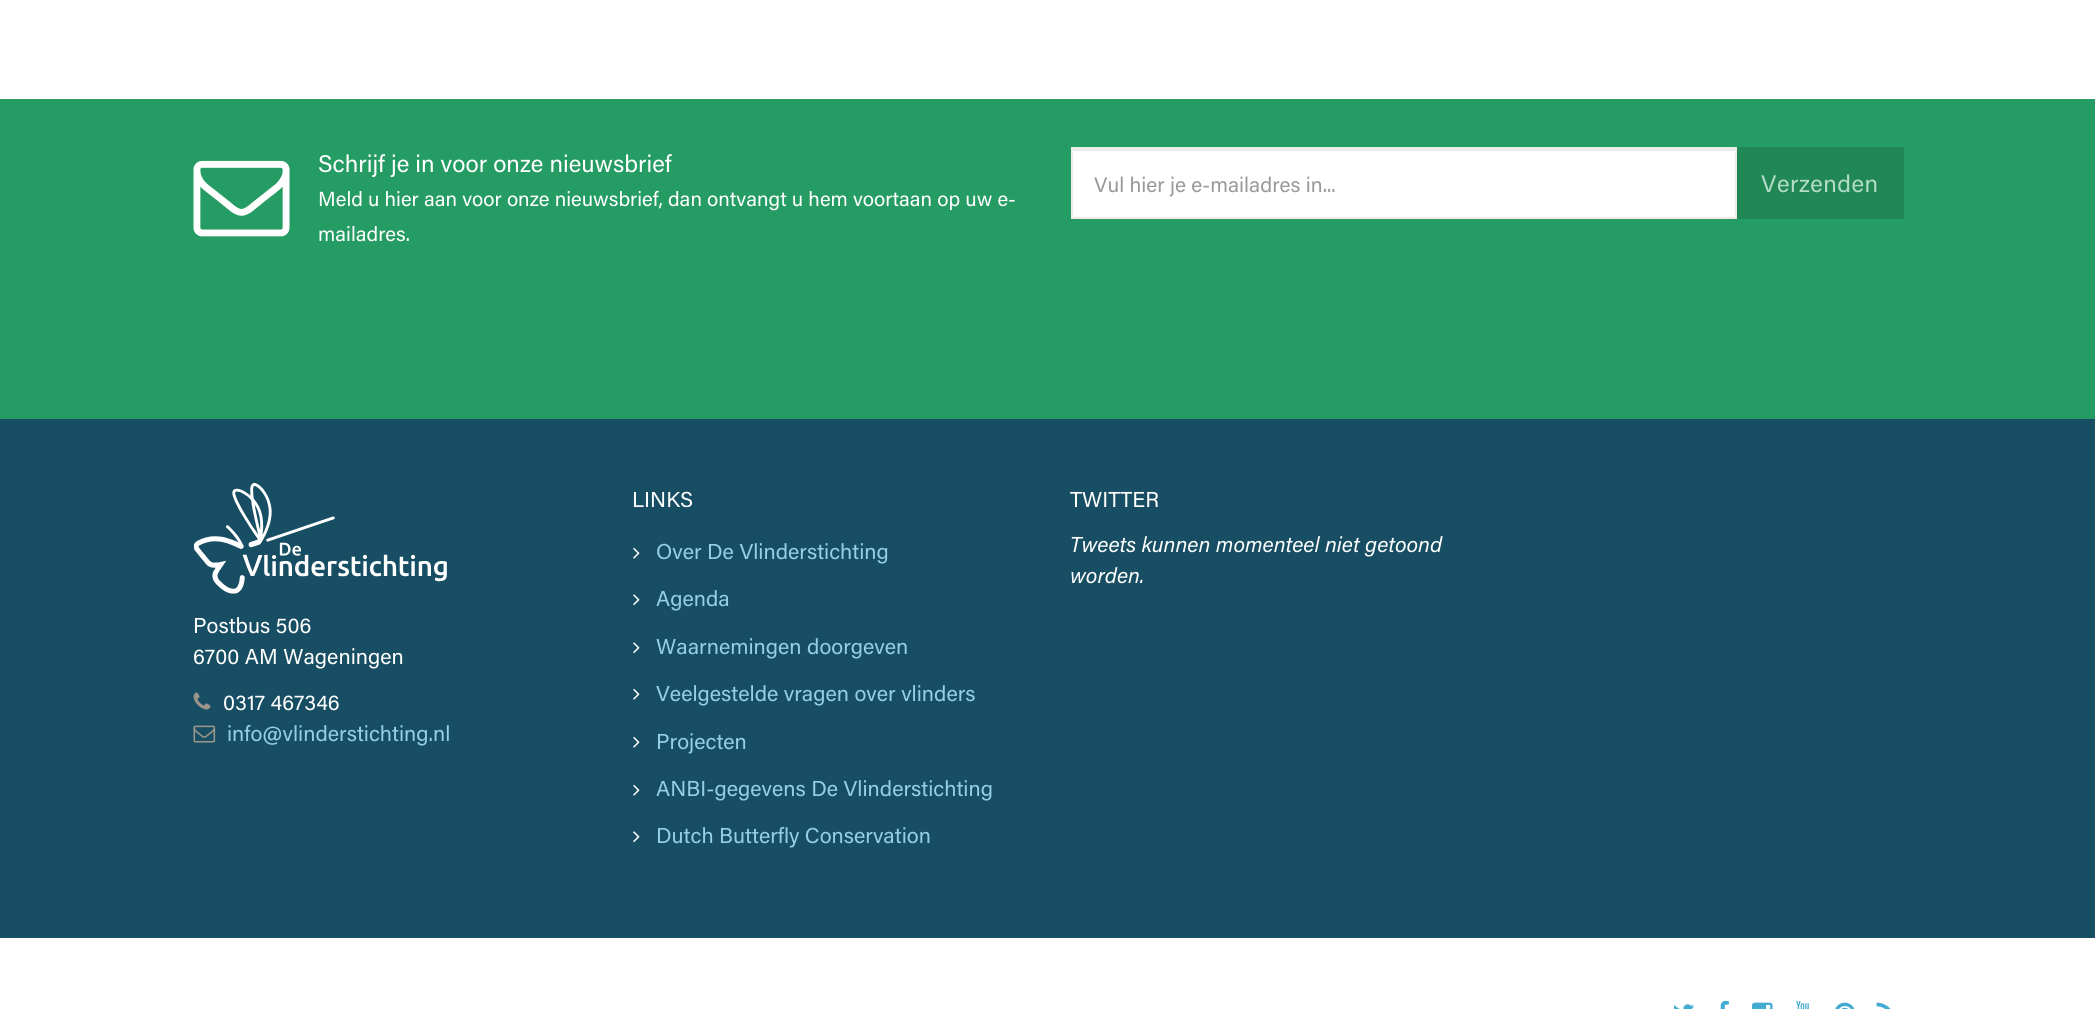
#include <cairo.h>
#include <math.h>
#include <stddef.h>


static void spaced_text(cairo_t *cr, double x, double y, const char *s, double letter, double word) {
    cairo_move_to(cr, x, y);
    while (*s) {
        char ch[5] = {0};
        int n = 0;
        do ch[n++] = *s++; while ((*s & 0xC0) == 0x80);
        cairo_show_text(cr, ch);
        cairo_rel_move_to(cr, letter + word * (*ch == ' '), 0);
    }
}

static void picture(cairo_t *cr, const char *path, double x, double y, double w, double h) {
    cairo_surface_t *image = cairo_image_surface_create_from_png(path);
    cairo_save(cr);
    cairo_set_source_surface(cr, image, x, y);
    cairo_rectangle(cr, x, y, w, h);
    cairo_fill(cr);
    cairo_restore(cr);
    cairo_surface_destroy(image);
}

int main(void) {
    cairo_surface_t *surface = cairo_image_surface_create(CAIRO_FORMAT_RGB24, 2095, 1009);
    cairo_t *cr = cairo_create(surface);
    cairo_font_options_t *options = cairo_font_options_create();
    cairo_font_options_set_hint_metrics(options, CAIRO_HINT_METRICS_OFF);
    cairo_font_options_set_hint_style(options, CAIRO_HINT_STYLE_NONE);
    cairo_set_font_options(cr, options);
    cairo_set_miter_limit(cr, 4);
    cairo_set_source_rgb(cr, 1, 1, 1);
    cairo_paint(cr);
    cairo_set_source_rgb(cr, 0.145, 0.612, 0.388);
    cairo_rectangle(cr, 0, 99, 2095, 320);
    cairo_fill(cr);
    picture(cr, "img1.png", 193, 160, 97, 77);
    cairo_select_font_face(cr, "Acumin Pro", CAIRO_FONT_SLANT_NORMAL, CAIRO_FONT_WEIGHT_NORMAL);
    cairo_set_font_size(cr, 24);
    cairo_set_source_rgb(cr, 1, 1, 1);
    cairo_move_to(cr, 318, 172);
    cairo_show_text(cr, "Schrijf je in voor onze nieuwsbrief");
    cairo_set_font_size(cr, 20.4);
    cairo_move_to(cr, 318, 206);
    cairo_show_text(cr, "Meld u hier aan voor onze nieuwsbrief, dan ontvangt u hem voortaan op uw e-");
    cairo_move_to(cr, 318, 241);
    cairo_show_text(cr, "mailadres.");
    cairo_rectangle(cr, 1073, 151, 662, 66);
    cairo_fill(cr);
    cairo_set_source_rgb(cr, 0.925, 0.925, 0.925);
    cairo_rectangle(cr, 1073, 149, 663, 2);
    cairo_fill(cr);
    cairo_rectangle(cr, 1072, 148, 664, 70);
    cairo_set_source_rgb(cr, 0.925, 0.922, 0.914);
    cairo_stroke(cr);
    cairo_set_font_size(cr, 21);
    cairo_set_source_rgb(cr, 0.6, 0.6, 0.6);
    cairo_move_to(cr, 1094, 192);
    cairo_show_text(cr, "Vul hier je e-mailadres in...");
    cairo_set_source_rgb(cr, 0.125, 0.529, 0.333);
    cairo_rectangle(cr, 1737, 147, 167, 72);
    cairo_fill(cr);
    cairo_set_font_size(cr, 24);
    cairo_set_source_rgb(cr, 0.702, 0.863, 0.784);
    spaced_text(cr, 1761, 192, "Verzenden", 0.5, 0);
    cairo_set_source_rgb(cr, 0.094, 0.306, 0.388);
    cairo_rectangle(cr, 0, 419, 2095, 519);
    cairo_fill(cr);
    cairo_set_font_size(cr, 21.6);
    cairo_set_source_rgb(cr, 1, 1, 1);
    cairo_move_to(cr, 632, 507);
    cairo_show_text(cr, "LINKS");
    picture(cr, "img2.png", 633, 547, 7, 12);
    cairo_set_source_rgb(cr, 0.58, 0.812, 0.898);
    cairo_move_to(cr, 656, 559);
    cairo_show_text(cr, "Over De Vlinderstichting");
    picture(cr, "img3.png", 633, 594, 7, 12);
    cairo_move_to(cr, 656, 606);
    cairo_show_text(cr, "Agenda");
    picture(cr, "img3.png", 633, 642, 7, 12);
    cairo_move_to(cr, 656, 654);
    cairo_show_text(cr, "Waarnemingen doorgeven");
    picture(cr, "img2.png", 633, 688, 7, 12);
    cairo_move_to(cr, 656, 701);
    cairo_show_text(cr, "Veelgestelde vragen over vlinders");
    picture(cr, "img2.png", 633, 736, 7, 12);
    cairo_move_to(cr, 656, 749);
    cairo_show_text(cr, "Projecten");
    picture(cr, "img2.png", 633, 784, 7, 12);
    cairo_move_to(cr, 656, 796);
    cairo_show_text(cr, "ANBI-gegevens De Vlinderstichting");
    picture(cr, "img3.png", 633, 831, 7, 12);
    cairo_move_to(cr, 656, 843);
    cairo_show_text(cr, "Dutch Butterfly Conservation");
    cairo_set_source_rgb(cr, 1, 1, 1);
    cairo_move_to(cr, 1070, 507);
    cairo_show_text(cr, "TWITTER");
    cairo_select_font_face(cr, "Acumin Pro", CAIRO_FONT_SLANT_ITALIC, CAIRO_FONT_WEIGHT_NORMAL);
    cairo_move_to(cr, 1070, 552);
    cairo_show_text(cr, "Tweets kunnen momenteel niet getoond");
    cairo_move_to(cr, 1070, 583);
    cairo_show_text(cr, "worden.");
    picture(cr, "img4.png", 194, 483, 253, 111);
    cairo_select_font_face(cr, "Acumin Pro", CAIRO_FONT_SLANT_NORMAL, CAIRO_FONT_WEIGHT_NORMAL);
    cairo_move_to(cr, 193, 633);
    cairo_show_text(cr, "Postbus 506");
    cairo_move_to(cr, 193, 664);
    cairo_show_text(cr, "6700 AM Wageningen");
    picture(cr, "img5.png", 193, 692, 18, 18);
    cairo_move_to(cr, 223, 710);
    cairo_show_text(cr, "0317 467346");
    picture(cr, "img6.png", 193, 725, 23, 18);
    cairo_set_source_rgb(cr, 0.58, 0.812, 0.898);
    cairo_move_to(cr, 227, 741);
    cairo_show_text(cr, "info@vlinderstichting.nl");
    picture(cr, "img7.png", 1674, 1004, 20, 5);
    picture(cr, "img8.png", 1720, 1000, 9, 9);
    picture(cr, "img9.png", 1752, 1002, 21, 7);
    picture(cr, "img10.png", 1796, 1000, 13, 9);
    picture(cr, "img11.png", 1835, 1002, 20, 7);
    picture(cr, "img12.png", 1876, 1002, 15, 7);
    cairo_surface_write_to_png(surface, "page.png");
    cairo_font_options_destroy(options);
    cairo_destroy(cr);
    cairo_surface_destroy(surface);
    return 0;
}
